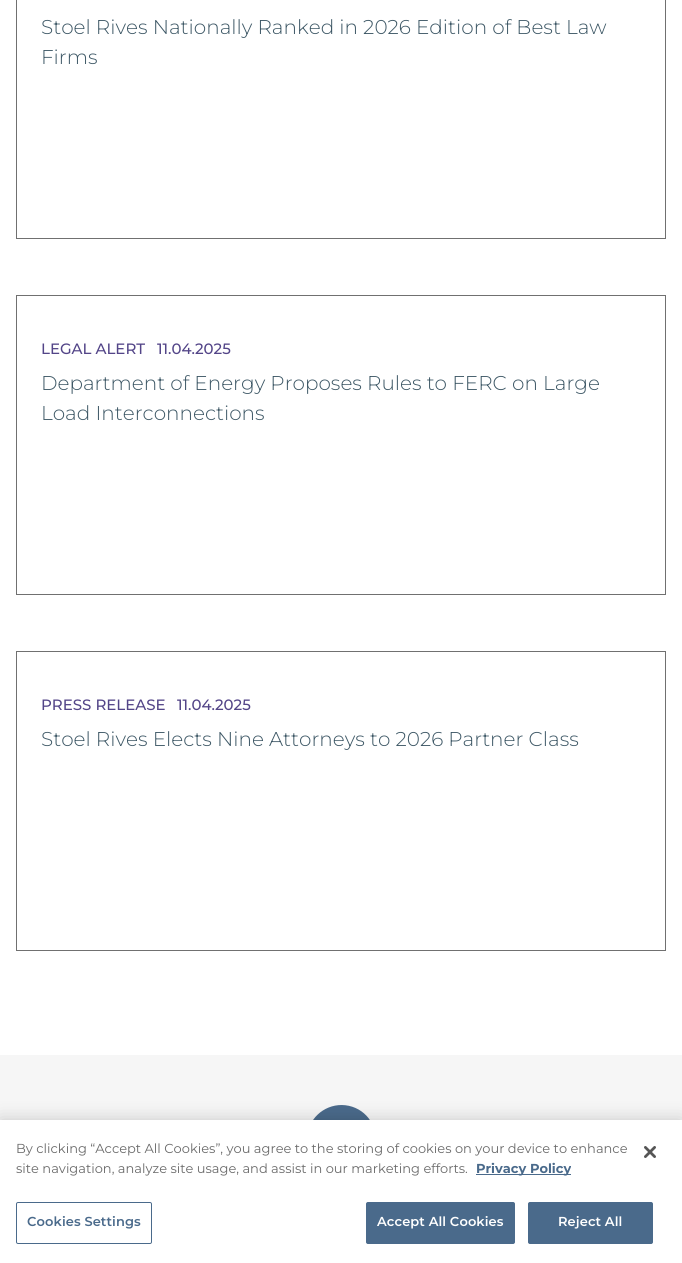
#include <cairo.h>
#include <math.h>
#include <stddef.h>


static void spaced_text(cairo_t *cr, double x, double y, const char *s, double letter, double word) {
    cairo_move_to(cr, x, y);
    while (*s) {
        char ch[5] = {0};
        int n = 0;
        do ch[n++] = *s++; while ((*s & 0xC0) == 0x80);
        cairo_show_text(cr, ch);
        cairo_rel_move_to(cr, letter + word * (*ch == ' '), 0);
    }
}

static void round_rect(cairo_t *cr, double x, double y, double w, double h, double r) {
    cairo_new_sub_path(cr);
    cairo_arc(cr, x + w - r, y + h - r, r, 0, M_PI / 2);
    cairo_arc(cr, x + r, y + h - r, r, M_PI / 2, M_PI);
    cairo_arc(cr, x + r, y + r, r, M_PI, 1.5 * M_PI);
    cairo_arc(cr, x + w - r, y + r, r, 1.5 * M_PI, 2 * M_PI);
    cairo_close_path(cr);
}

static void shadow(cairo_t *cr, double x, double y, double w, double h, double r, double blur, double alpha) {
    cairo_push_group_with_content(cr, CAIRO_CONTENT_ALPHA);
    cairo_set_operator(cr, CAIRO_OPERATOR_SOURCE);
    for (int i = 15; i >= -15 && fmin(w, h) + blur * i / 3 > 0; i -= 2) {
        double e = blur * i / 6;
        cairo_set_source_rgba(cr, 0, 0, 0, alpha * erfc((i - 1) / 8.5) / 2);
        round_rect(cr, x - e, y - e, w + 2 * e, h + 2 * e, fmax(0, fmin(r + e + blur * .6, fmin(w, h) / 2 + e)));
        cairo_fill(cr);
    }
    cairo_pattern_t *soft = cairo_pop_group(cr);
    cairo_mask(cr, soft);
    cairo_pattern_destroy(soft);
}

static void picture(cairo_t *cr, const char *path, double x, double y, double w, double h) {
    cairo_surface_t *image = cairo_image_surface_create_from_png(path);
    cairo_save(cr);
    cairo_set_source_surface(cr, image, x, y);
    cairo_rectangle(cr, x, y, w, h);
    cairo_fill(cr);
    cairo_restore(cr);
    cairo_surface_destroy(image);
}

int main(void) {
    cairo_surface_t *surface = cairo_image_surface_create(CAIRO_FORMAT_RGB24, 682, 1263);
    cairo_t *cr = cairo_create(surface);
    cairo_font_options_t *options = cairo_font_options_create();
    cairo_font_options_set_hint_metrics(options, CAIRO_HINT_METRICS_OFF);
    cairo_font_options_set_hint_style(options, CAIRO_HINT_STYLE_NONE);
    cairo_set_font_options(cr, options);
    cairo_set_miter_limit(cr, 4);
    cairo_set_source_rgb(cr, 1, 1, 1);
    cairo_paint(cr);
    cairo_rectangle(cr, 16.5, -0.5, 649, 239);
    cairo_set_source_rgb(cr, 0.439, 0.439, 0.439);
    cairo_set_line_width(cr, 1);
    cairo_stroke(cr);
    cairo_select_font_face(cr, "Montserrat Light", CAIRO_FONT_SLANT_NORMAL, CAIRO_FONT_WEIGHT_NORMAL);
    cairo_set_font_size(cr, 20);
    cairo_set_source_rgb(cr, 0.243, 0.345, 0.4);
    cairo_move_to(cr, 41, 34);
    cairo_show_text(cr, "Stoel Rives Nationally Ranked in 2026 Edition of Best Law");
    cairo_move_to(cr, 41, 64);
    cairo_show_text(cr, "Firms");
    cairo_rectangle(cr, 16.5, 295.5, 649, 299);
    cairo_set_source_rgb(cr, 0.439, 0.439, 0.439);
    cairo_stroke(cr);
    cairo_select_font_face(cr, "Montserrat Medium", CAIRO_FONT_SLANT_NORMAL, CAIRO_FONT_WEIGHT_NORMAL);
    cairo_set_font_size(cr, 15);
    cairo_set_source_rgb(cr, 0.325, 0.271, 0.533);
    cairo_move_to(cr, 41, 354);
    cairo_show_text(cr, "LEGAL ALERT");
    cairo_move_to(cr, 157, 354);
    cairo_show_text(cr, "11.04.2025");
    cairo_select_font_face(cr, "Montserrat Light", CAIRO_FONT_SLANT_NORMAL, CAIRO_FONT_WEIGHT_NORMAL);
    cairo_set_font_size(cr, 20);
    cairo_set_source_rgb(cr, 0.243, 0.345, 0.4);
    cairo_move_to(cr, 41, 390);
    cairo_show_text(cr, "Department of Energy Proposes Rules to FERC on Large");
    cairo_move_to(cr, 41, 420);
    cairo_show_text(cr, "Load Interconnections");
    cairo_rectangle(cr, 16.5, 651.5, 649, 299);
    cairo_set_source_rgb(cr, 0.439, 0.439, 0.439);
    cairo_stroke(cr);
    cairo_select_font_face(cr, "Montserrat Medium", CAIRO_FONT_SLANT_NORMAL, CAIRO_FONT_WEIGHT_NORMAL);
    cairo_set_font_size(cr, 15);
    cairo_set_source_rgb(cr, 0.325, 0.271, 0.533);
    cairo_move_to(cr, 41, 710);
    cairo_show_text(cr, "PRESS RELEASE");
    cairo_move_to(cr, 177, 710);
    cairo_show_text(cr, "11.04.2025");
    cairo_select_font_face(cr, "Montserrat Light", CAIRO_FONT_SLANT_NORMAL, CAIRO_FONT_WEIGHT_NORMAL);
    cairo_set_font_size(cr, 20);
    cairo_set_source_rgb(cr, 0.243, 0.345, 0.4);
    cairo_move_to(cr, 41, 746);
    cairo_show_text(cr, "Stoel Rives Elects Nine Attorneys to 2026 Partner Class");
    cairo_set_source_rgb(cr, 0.961, 0.961, 0.961);
    cairo_rectangle(cr, 0, 1055, 682, 65);
    cairo_fill(cr);
    picture(cr, "img1.png", 313, 1105, 57, 15);
    cairo_set_source_rgb(cr, 0, 0, 0);
    shadow(cr, 0, 1120, 682, 143, 0, 9, 0.2);
    cairo_set_source_rgb(cr, 1, 1, 1);
    cairo_rectangle(cr, 0, 1120, 682, 143);
    cairo_fill(cr);
    cairo_select_font_face(cr, "Montserrat", CAIRO_FONT_SLANT_NORMAL, CAIRO_FONT_WEIGHT_NORMAL);
    cairo_set_font_size(cr, 13);
    cairo_set_source_rgb(cr, 0.412, 0.412, 0.412);
    cairo_move_to(cr, 16, 1153);
    cairo_show_text(cr, "By clicking “Accept All Cookies”, you agree to the storing of cookies on your device to enhance");
    cairo_move_to(cr, 16, 1173);
    cairo_show_text(cr, "site navigation, analyze site usage, and assist in our marketing efforts.");
    cairo_set_source_rgb(cr, 0.29, 0.416, 0.545);
    cairo_rectangle(cr, 476, 1174, 95, 1);
    cairo_fill(cr);
    cairo_select_font_face(cr, "Montserrat", CAIRO_FONT_SLANT_NORMAL, CAIRO_FONT_WEIGHT_BOLD);
    cairo_move_to(cr, 476, 1173);
    cairo_show_text(cr, "Privacy Policy");
    round_rect(cr, 16.5, 1202.5, 135, 41, 1.5);
    cairo_stroke(cr);
    cairo_select_font_face(cr, "Montserrat SemiBold", CAIRO_FONT_SLANT_NORMAL, CAIRO_FONT_WEIGHT_NORMAL);
    spaced_text(cr, 27, 1226, "Cookies Settings", 0.1, 0);
    round_rect(cr, 366.5, 1202.5, 148, 41, 1.5);
    cairo_fill_preserve(cr);
    cairo_stroke(cr);
    cairo_set_source_rgb(cr, 1, 1, 1);
    spaced_text(cr, 377, 1226, "Accept All Cookies", 0.1, 0);
    cairo_set_source_rgb(cr, 0.29, 0.416, 0.545);
    round_rect(cr, 528.5, 1202.5, 124, 41, 1.5);
    cairo_fill_preserve(cr);
    cairo_stroke(cr);
    cairo_set_source_rgb(cr, 1, 1, 1);
    spaced_text(cr, 558, 1226, "Reject All", 0.1, 0);
    picture(cr, "img2.png", 644, 1146, 12, 12);
    cairo_surface_write_to_png(surface, "page.png");
    cairo_font_options_destroy(options);
    cairo_destroy(cr);
    cairo_surface_destroy(surface);
    return 0;
}
